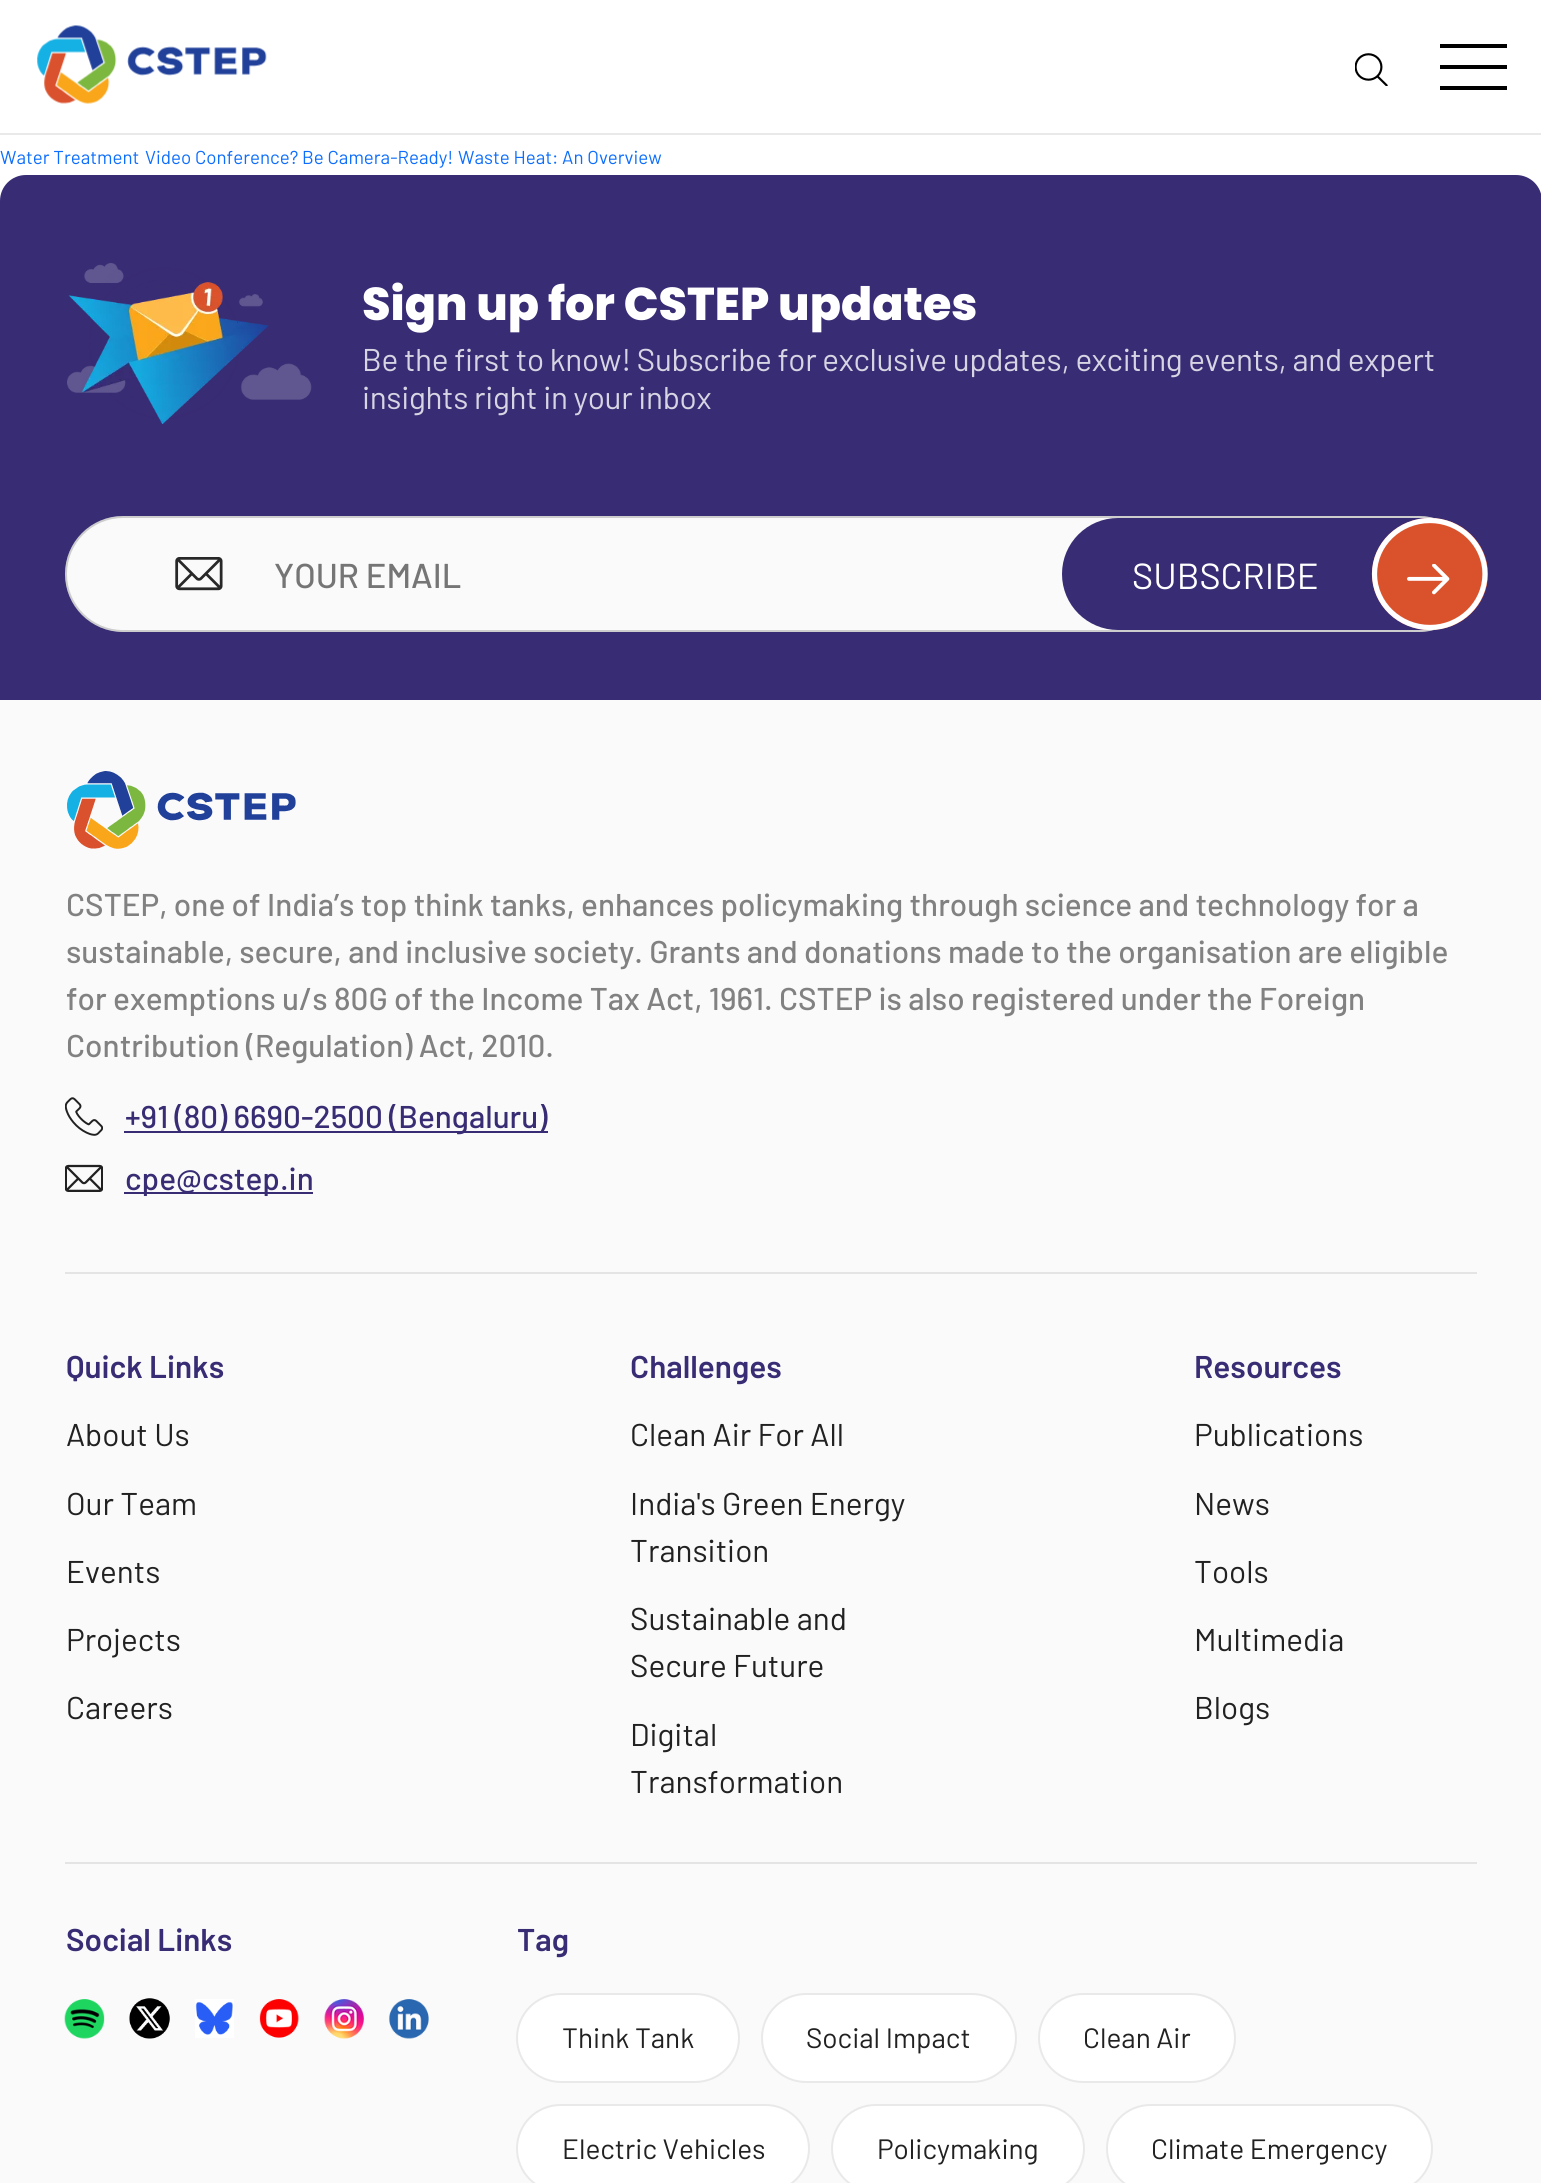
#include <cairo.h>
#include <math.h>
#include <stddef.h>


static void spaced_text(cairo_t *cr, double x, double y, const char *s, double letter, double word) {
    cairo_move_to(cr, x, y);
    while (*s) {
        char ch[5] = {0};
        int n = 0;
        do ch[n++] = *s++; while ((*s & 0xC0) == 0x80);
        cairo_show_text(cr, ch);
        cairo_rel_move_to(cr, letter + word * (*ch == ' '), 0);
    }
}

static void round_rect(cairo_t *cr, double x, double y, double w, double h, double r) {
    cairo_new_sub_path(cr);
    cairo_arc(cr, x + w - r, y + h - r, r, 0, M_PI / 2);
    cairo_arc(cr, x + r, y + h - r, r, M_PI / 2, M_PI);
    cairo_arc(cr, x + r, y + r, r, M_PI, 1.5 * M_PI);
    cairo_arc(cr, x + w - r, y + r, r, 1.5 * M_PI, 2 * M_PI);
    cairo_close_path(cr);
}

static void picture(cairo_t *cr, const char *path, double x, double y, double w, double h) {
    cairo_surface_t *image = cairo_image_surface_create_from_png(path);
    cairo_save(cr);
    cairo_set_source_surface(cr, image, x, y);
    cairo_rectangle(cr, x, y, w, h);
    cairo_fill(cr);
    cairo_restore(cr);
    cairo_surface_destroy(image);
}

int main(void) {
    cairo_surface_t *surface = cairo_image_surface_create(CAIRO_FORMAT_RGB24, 1541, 2183);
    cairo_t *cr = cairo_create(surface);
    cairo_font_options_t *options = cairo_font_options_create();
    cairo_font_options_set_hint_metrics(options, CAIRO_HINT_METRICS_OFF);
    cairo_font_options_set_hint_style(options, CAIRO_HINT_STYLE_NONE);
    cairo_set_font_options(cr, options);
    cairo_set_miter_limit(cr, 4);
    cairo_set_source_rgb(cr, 1, 1, 1);
    cairo_paint(cr);
    cairo_set_source_rgb(cr, 0.914, 0.914, 0.914);
    cairo_rectangle(cr, 0, 133, 1541, 2);
    cairo_fill(cr);
    picture(cr, "img1.png", 37, 25, 230, 79);
    picture(cr, "img2.png", 1355, 53, 33, 33);
    cairo_set_source_rgb(cr, 0, 0, 0);
    cairo_rectangle(cr, 1440, 44, 67, 4);
    cairo_fill(cr);
    cairo_rectangle(cr, 1440, 65, 67, 4);
    cairo_fill(cr);
    cairo_rectangle(cr, 1440, 86, 67, 4);
    cairo_fill(cr);
    cairo_select_font_face(cr, "Barlow", CAIRO_FONT_SLANT_NORMAL, CAIRO_FONT_WEIGHT_NORMAL);
    cairo_set_font_size(cr, 18.7);
    cairo_set_source_rgb(cr, 0.051, 0.431, 0.992);
    cairo_move_to(cr, 0, 164);
    cairo_show_text(cr, "Water Treatment");
    cairo_move_to(cr, 145, 164);
    cairo_show_text(cr, "Video Conference? Be Camera-Ready!");
    cairo_move_to(cr, 458, 164);
    cairo_show_text(cr, "Waste Heat: An Overview");
    cairo_set_source_rgb(cr, 0.22, 0.173, 0.455);
    cairo_new_path(cr);
    cairo_move_to(cr, 26, 175);
    cairo_line_to(cr, 1516, 175);
    cairo_curve_to(cr, 1530.5, 175, 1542, 186.5, 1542, 201);
    cairo_line_to(cr, 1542, 700);
    cairo_line_to(cr, 0, 700);
    cairo_line_to(cr, 0, 201);
    cairo_curve_to(cr, 0, 186.5, 11.5, 175, 26, 175);
    cairo_close_path(cr);
    cairo_fill(cr);
    picture(cr, "img3.png", 67, 263, 245, 162);
    cairo_select_font_face(cr, "Poppins ExtraBold", CAIRO_FONT_SLANT_NORMAL, CAIRO_FONT_WEIGHT_NORMAL);
    cairo_set_font_size(cr, 46);
    cairo_set_source_rgb(cr, 1, 1, 1);
    cairo_move_to(cr, 362, 320);
    cairo_show_text(cr, "Sign up for CSTEP updates");
    cairo_select_font_face(cr, "Barlow", CAIRO_FONT_SLANT_NORMAL, CAIRO_FONT_WEIGHT_NORMAL);
    cairo_set_font_size(cr, 31.5);
    cairo_set_source_rgb(cr, 0.843, 0.835, 0.89);
    spaced_text(cr, 362, 371, "Be the first to know! Subscribe for exclusive updates, exciting events, and expert", -0.32, 0);
    spaced_text(cr, 362, 409, "insights right in your inbox", -0.32, 0);
    cairo_set_source_rgb(cr, 0.98, 0.98, 0.98);
    round_rect(cr, 65, 516, 1412, 116, 58);
    cairo_fill(cr);
    round_rect(cr, 66, 517, 1410, 114, 57);
    cairo_set_source_rgba(cr, 0, 0, 0, 0.18);
    cairo_stroke(cr);
    picture(cr, "img4.png", 175, 557, 48, 34);
    cairo_select_font_face(cr, "Barlow Medium", CAIRO_FONT_SLANT_NORMAL, CAIRO_FONT_WEIGHT_NORMAL);
    cairo_set_font_size(cr, 34.5);
    cairo_set_source_rgb(cr, 0.459, 0.459, 0.459);
    cairo_move_to(cr, 274, 588);
    cairo_show_text(cr, "YOUR EMAIL");
    cairo_set_source_rgb(cr, 0.22, 0.173, 0.455);
    round_rect(cr, 1062, 518, 413, 112, 56);
    cairo_fill(cr);
    cairo_select_font_face(cr, "Barlow", CAIRO_FONT_SLANT_NORMAL, CAIRO_FONT_WEIGHT_NORMAL);
    cairo_set_font_size(cr, 36.25);
    cairo_set_source_rgb(cr, 1, 1, 1);
    cairo_move_to(cr, 1132, 589);
    cairo_show_text(cr, "SUBSCRIBE");
    cairo_set_source_rgb(cr, 0.855, 0.322, 0.173);
    cairo_new_path(cr);
    cairo_move_to(cr, 1430, 518);
    cairo_curve_to(cr, 1462, 518, 1488, 543, 1488, 574);
    cairo_curve_to(cr, 1488, 605, 1462, 630, 1430, 630);
    cairo_curve_to(cr, 1398, 630, 1372, 605, 1372, 574);
    cairo_curve_to(cr, 1372, 543, 1398, 518, 1430, 518);
    cairo_close_path(cr);
    cairo_fill(cr);
    cairo_new_path(cr);
    cairo_move_to(cr, 1430, 520.5);
    cairo_curve_to(cr, 1460, 520.5, 1485, 544.5, 1485, 574);
    cairo_curve_to(cr, 1485, 603.5, 1460, 627.5, 1430, 627.5);
    cairo_curve_to(cr, 1399.5, 627.5, 1374.5, 603.5, 1374.5, 574);
    cairo_curve_to(cr, 1374.5, 544.5, 1399.5, 520.5, 1430, 520.5);
    cairo_close_path(cr);
    cairo_set_source_rgb(cr, 1, 1, 1);
    cairo_set_line_width(cr, 5.2);
    cairo_stroke(cr);
    cairo_set_source_rgb(cr, 0.91, 0.569, 0.475);
    cairo_rectangle(cr, 1377, 578, 1, 1);
    cairo_fill(cr);
    picture(cr, "img5.png", 1407, 564, 43, 31);
    cairo_set_source_rgb(cr, 0.98, 0.98, 0.98);
    cairo_rectangle(cr, 0, 700, 1541, 1483);
    cairo_fill(cr);
    cairo_set_source_rgb(cr, 0.894, 0.894, 0.894);
    cairo_rectangle(cr, 65, 1272, 1412, 2);
    cairo_fill(cr);
    picture(cr, "img6.png", 67, 771, 229, 78);
    cairo_select_font_face(cr, "Barlow Medium", CAIRO_FONT_SLANT_NORMAL, CAIRO_FONT_WEIGHT_NORMAL);
    cairo_set_font_size(cr, 31.5);
    cairo_set_source_rgb(cr, 0.506, 0.506, 0.506);
    cairo_move_to(cr, 66, 916);
    cairo_show_text(cr, "CSTEP, one of India’s top think tanks, enhances policymaking through science and technology for a");
    cairo_move_to(cr, 66, 963);
    cairo_show_text(cr, "sustainable, secure, and inclusive society. Grants and donations made to the organisation are eligible");
    cairo_move_to(cr, 66, 1010);
    cairo_show_text(cr, "for exemptions u/s 80G of the Income Tax Act, 1961. CSTEP is also registered under the Foreign");
    cairo_move_to(cr, 66, 1057);
    cairo_show_text(cr, "Contribution (Regulation) Act, 2010.");
    picture(cr, "img7.png", 65, 1097, 38, 39);
    cairo_set_source_rgb(cr, 0.22, 0.173, 0.455);
    cairo_rectangle(cr, 124, 1131, 424, 2);
    cairo_fill(cr);
    cairo_move_to(cr, 125, 1128);
    cairo_show_text(cr, "+91 (80) 6690-2500 (Bengaluru)");
    picture(cr, "img8.png", 65, 1164, 38, 28);
    cairo_rectangle(cr, 124, 1192, 189, 2);
    cairo_fill(cr);
    cairo_move_to(cr, 125, 1190);
    cairo_show_text(cr, "cpe@cstep.in");
    cairo_select_font_face(cr, "Barlow SemiBold", CAIRO_FONT_SLANT_NORMAL, CAIRO_FONT_WEIGHT_NORMAL);
    cairo_move_to(cr, 66, 1378);
    cairo_show_text(cr, "Quick Links");
    cairo_select_font_face(cr, "Barlow", CAIRO_FONT_SLANT_NORMAL, CAIRO_FONT_WEIGHT_NORMAL);
    cairo_set_source_rgb(cr, 0.129, 0.129, 0.129);
    cairo_move_to(cr, 66, 1446);
    cairo_show_text(cr, "About Us");
    cairo_move_to(cr, 66, 1515);
    cairo_show_text(cr, "Our Team");
    cairo_move_to(cr, 66, 1583);
    cairo_show_text(cr, "Events");
    cairo_move_to(cr, 66, 1651);
    cairo_show_text(cr, "Projects");
    cairo_move_to(cr, 66, 1719);
    cairo_show_text(cr, "Careers");
    cairo_select_font_face(cr, "Barlow SemiBold", CAIRO_FONT_SLANT_NORMAL, CAIRO_FONT_WEIGHT_NORMAL);
    cairo_set_source_rgb(cr, 0.22, 0.173, 0.455);
    cairo_move_to(cr, 630, 1378);
    cairo_show_text(cr, "Challenges");
    cairo_select_font_face(cr, "Barlow", CAIRO_FONT_SLANT_NORMAL, CAIRO_FONT_WEIGHT_NORMAL);
    cairo_set_source_rgb(cr, 0.129, 0.129, 0.129);
    cairo_move_to(cr, 630, 1446);
    cairo_show_text(cr, "Clean Air For All");
    cairo_move_to(cr, 630, 1515);
    cairo_show_text(cr, "India's Green Energy");
    cairo_move_to(cr, 630, 1562);
    cairo_show_text(cr, "Transition");
    cairo_move_to(cr, 630, 1630);
    cairo_show_text(cr, "Sustainable and");
    cairo_move_to(cr, 630, 1677);
    cairo_show_text(cr, "Secure Future");
    cairo_move_to(cr, 630, 1746);
    cairo_show_text(cr, "Digital");
    cairo_move_to(cr, 630, 1793);
    cairo_show_text(cr, "Transformation");
    cairo_select_font_face(cr, "Barlow SemiBold", CAIRO_FONT_SLANT_NORMAL, CAIRO_FONT_WEIGHT_NORMAL);
    cairo_set_source_rgb(cr, 0.22, 0.173, 0.455);
    cairo_move_to(cr, 1194, 1378);
    cairo_show_text(cr, "Resources");
    cairo_select_font_face(cr, "Barlow", CAIRO_FONT_SLANT_NORMAL, CAIRO_FONT_WEIGHT_NORMAL);
    cairo_set_source_rgb(cr, 0.129, 0.129, 0.129);
    cairo_move_to(cr, 1194, 1446);
    cairo_show_text(cr, "Publications");
    cairo_move_to(cr, 1194, 1515);
    cairo_show_text(cr, "News");
    cairo_move_to(cr, 1194, 1583);
    cairo_show_text(cr, "Tools");
    cairo_move_to(cr, 1194, 1651);
    cairo_show_text(cr, "Multimedia");
    cairo_move_to(cr, 1194, 1719);
    cairo_show_text(cr, "Blogs");
    cairo_set_source_rgb(cr, 0.894, 0.894, 0.894);
    cairo_rectangle(cr, 65, 1862, 1412, 2);
    cairo_fill(cr);
    cairo_select_font_face(cr, "Barlow SemiBold", CAIRO_FONT_SLANT_NORMAL, CAIRO_FONT_WEIGHT_NORMAL);
    cairo_set_source_rgb(cr, 0.22, 0.173, 0.455);
    cairo_move_to(cr, 66, 1951);
    cairo_show_text(cr, "Social Links");
    picture(cr, "img9.png", 64, 1999, 41, 40);
    picture(cr, "img10.png", 129, 1998, 41, 41);
    picture(cr, "img11.png", 195, 1999, 39, 39);
    picture(cr, "img12.png", 259, 1999, 40, 39);
    picture(cr, "img13.png", 324, 1999, 40, 40);
    picture(cr, "img14.png", 389, 1999, 40, 40);
    cairo_move_to(cr, 517, 1951);
    cairo_show_text(cr, "Tag");
    cairo_set_source_rgb(cr, 1, 1, 1);
    round_rect(cr, 517, 1994, 222, 88, 44);
    cairo_fill_preserve(cr);
    cairo_set_source_rgb(cr, 0.914, 0.914, 0.914);
    cairo_set_line_width(cr, 2);
    cairo_stroke(cr);
    cairo_select_font_face(cr, "Barlow", CAIRO_FONT_SLANT_NORMAL, CAIRO_FONT_WEIGHT_NORMAL);
    cairo_set_font_size(cr, 28);
    cairo_set_source_rgb(cr, 0.129, 0.129, 0.129);
    cairo_move_to(cr, 562, 2048);
    cairo_show_text(cr, "Think Tank");
    cairo_set_source_rgb(cr, 1, 1, 1);
    round_rect(cr, 762, 1994, 254, 88, 44);
    cairo_fill_preserve(cr);
    cairo_set_source_rgb(cr, 0.914, 0.914, 0.914);
    cairo_stroke(cr);
    cairo_set_source_rgb(cr, 0.129, 0.129, 0.129);
    cairo_move_to(cr, 806, 2048);
    cairo_show_text(cr, "Social Impact");
    cairo_set_source_rgb(cr, 1, 1, 1);
    round_rect(cr, 1039, 1994, 196, 88, 44);
    cairo_fill_preserve(cr);
    cairo_set_source_rgb(cr, 0.914, 0.914, 0.914);
    cairo_stroke(cr);
    cairo_set_source_rgb(cr, 0.129, 0.129, 0.129);
    cairo_move_to(cr, 1083, 2048);
    cairo_show_text(cr, "Clean Air");
    cairo_set_source_rgb(cr, 1, 1, 1);
    round_rect(cr, 517, 2105, 292, 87, 43.5);
    cairo_fill_preserve(cr);
    cairo_set_source_rgb(cr, 0.914, 0.914, 0.914);
    cairo_stroke(cr);
    cairo_set_source_rgb(cr, 0.129, 0.129, 0.129);
    cairo_move_to(cr, 562, 2159);
    cairo_show_text(cr, "Electric Vehicles");
    cairo_set_source_rgb(cr, 1, 1, 1);
    round_rect(cr, 832, 2105, 252, 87, 43.5);
    cairo_fill_preserve(cr);
    cairo_set_source_rgb(cr, 0.914, 0.914, 0.914);
    cairo_stroke(cr);
    cairo_set_source_rgb(cr, 0.129, 0.129, 0.129);
    cairo_move_to(cr, 877, 2159);
    cairo_show_text(cr, "Policymaking");
    cairo_set_source_rgb(cr, 1, 1, 1);
    round_rect(cr, 1107, 2105, 325, 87, 43.5);
    cairo_fill_preserve(cr);
    cairo_set_source_rgb(cr, 0.914, 0.914, 0.914);
    cairo_stroke(cr);
    cairo_set_source_rgb(cr, 0.129, 0.129, 0.129);
    cairo_move_to(cr, 1151, 2159);
    cairo_show_text(cr, "Climate Emergency");
    cairo_surface_write_to_png(surface, "page.png");
    cairo_font_options_destroy(options);
    cairo_destroy(cr);
    cairo_surface_destroy(surface);
    return 0;
}
